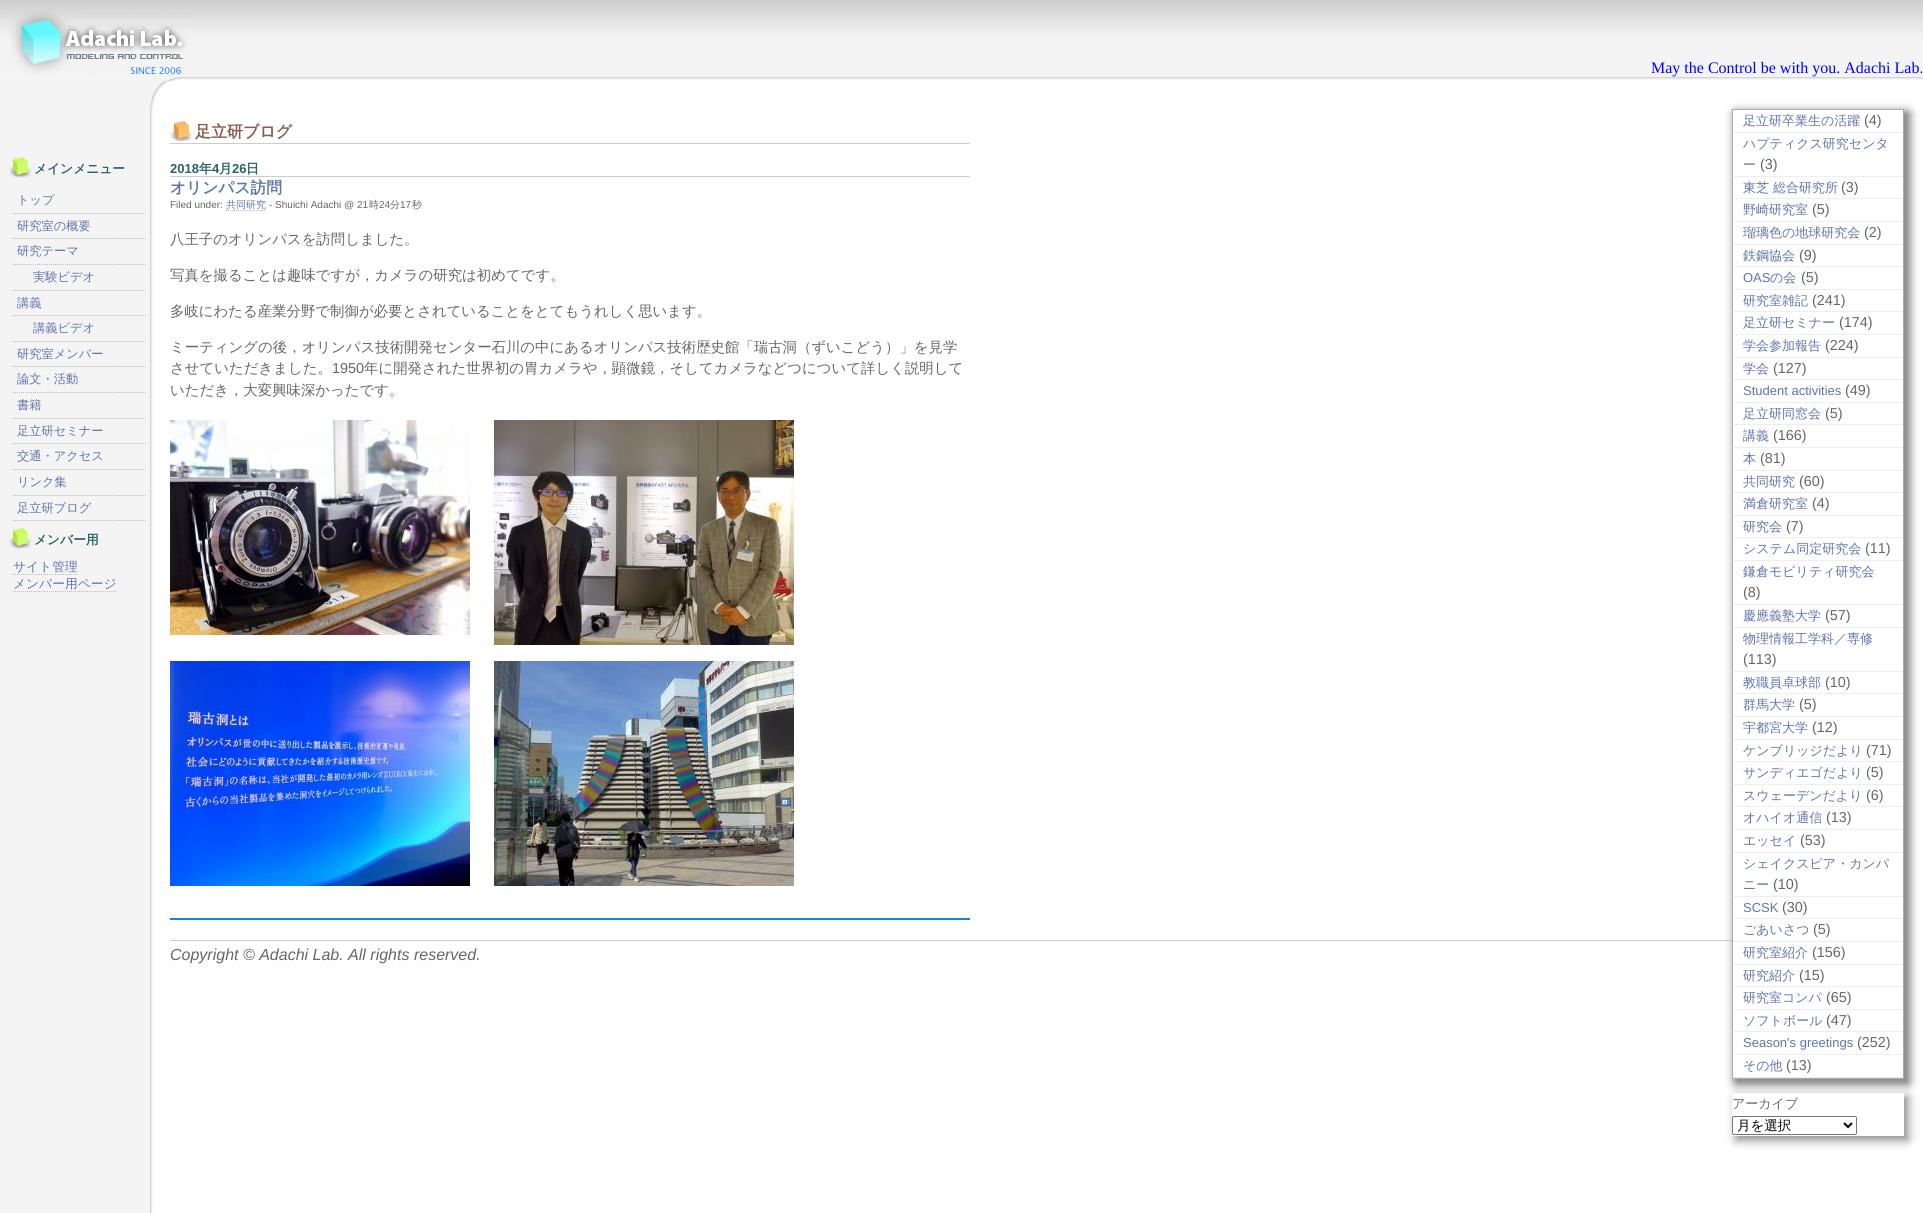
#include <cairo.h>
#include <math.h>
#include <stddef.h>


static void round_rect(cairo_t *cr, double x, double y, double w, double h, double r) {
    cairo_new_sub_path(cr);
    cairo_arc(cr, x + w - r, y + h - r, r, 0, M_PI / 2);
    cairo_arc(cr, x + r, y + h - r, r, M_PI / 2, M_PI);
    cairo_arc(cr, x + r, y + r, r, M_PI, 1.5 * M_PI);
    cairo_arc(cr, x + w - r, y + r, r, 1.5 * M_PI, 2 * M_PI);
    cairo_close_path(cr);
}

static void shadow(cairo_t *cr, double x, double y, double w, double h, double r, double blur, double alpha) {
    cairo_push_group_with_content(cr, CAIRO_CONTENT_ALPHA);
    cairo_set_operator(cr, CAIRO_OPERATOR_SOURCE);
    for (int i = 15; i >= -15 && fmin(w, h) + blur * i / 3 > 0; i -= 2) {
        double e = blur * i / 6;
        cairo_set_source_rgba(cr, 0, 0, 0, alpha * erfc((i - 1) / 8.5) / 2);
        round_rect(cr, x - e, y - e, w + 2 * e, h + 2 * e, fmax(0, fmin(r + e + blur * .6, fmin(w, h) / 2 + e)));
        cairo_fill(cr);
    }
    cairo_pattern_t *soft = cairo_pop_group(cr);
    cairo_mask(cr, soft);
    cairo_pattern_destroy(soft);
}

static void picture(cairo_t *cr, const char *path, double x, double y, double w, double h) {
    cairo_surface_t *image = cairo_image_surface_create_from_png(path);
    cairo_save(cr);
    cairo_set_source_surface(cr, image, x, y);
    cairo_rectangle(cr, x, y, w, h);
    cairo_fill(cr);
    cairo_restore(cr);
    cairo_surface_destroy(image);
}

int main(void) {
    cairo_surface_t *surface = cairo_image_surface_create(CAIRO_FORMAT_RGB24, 1923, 1213);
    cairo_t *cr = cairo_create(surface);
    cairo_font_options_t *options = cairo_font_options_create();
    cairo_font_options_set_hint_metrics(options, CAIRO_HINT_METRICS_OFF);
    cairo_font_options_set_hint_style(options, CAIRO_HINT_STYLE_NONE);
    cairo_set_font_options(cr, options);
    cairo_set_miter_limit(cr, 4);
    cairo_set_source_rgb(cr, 1, 1, 1);
    cairo_paint(cr);
    picture(cr, "img1.png", 0, 81, 153, 1132);
    picture(cr, "img2.png", 0, 0, 1923, 81);
    picture(cr, "img3.png", 0, 77, 180, 4);
    picture(cr, "img4.png", 0, 7, 192, 69);
    cairo_select_font_face(cr, "Liberation Serif", CAIRO_FONT_SLANT_NORMAL, CAIRO_FONT_WEIGHT_NORMAL);
    cairo_set_font_size(cr, 16);
    cairo_set_source_rgb(cr, 0, 0, 1);
    cairo_move_to(cr, 1651, 73);
    cairo_show_text(cr, "May the Control be with you. Adachi Lab.");
    picture(cr, "img5.png", 150, 81, 20, 25);
    picture(cr, "img6.png", 9, 157, 23, 21);
    cairo_select_font_face(cr, "WenQuanYi Zen Hei", CAIRO_FONT_SLANT_NORMAL, CAIRO_FONT_WEIGHT_BOLD);
    cairo_set_font_size(cr, 12.75);
    cairo_set_source_rgb(cr, 0.157, 0.388, 0.404);
    cairo_move_to(cr, 34, 173);
    cairo_show_text(cr, "メインメニュー");
    cairo_new_path(cr);
    cairo_move_to(cr, 13, 213.5);
    cairo_line_to(cr, 146, 213.5);
    cairo_set_source_rgb(cr, 0.733, 0.733, 0.733);
    cairo_set_line_width(cr, 1);
    cairo_set_dash(cr, (double[]){1, 1}, 2, 0);
    cairo_stroke(cr);
    cairo_select_font_face(cr, "WenQuanYi Zen Hei Medium", CAIRO_FONT_SLANT_NORMAL, CAIRO_FONT_WEIGHT_NORMAL);
    cairo_set_font_size(cr, 12.25);
    cairo_set_source_rgb(cr, 0.376, 0.459, 0.667);
    cairo_move_to(cr, 17, 204);
    cairo_show_text(cr, "トップ");
    cairo_new_path(cr);
    cairo_move_to(cr, 13, 238.5);
    cairo_line_to(cr, 146, 238.5);
    cairo_set_source_rgb(cr, 0.733, 0.733, 0.733);
    cairo_stroke(cr);
    cairo_set_source_rgb(cr, 0.376, 0.459, 0.667);
    cairo_move_to(cr, 17, 230);
    cairo_show_text(cr, "研究室の概要");
    cairo_new_path(cr);
    cairo_move_to(cr, 13, 264.5);
    cairo_line_to(cr, 146, 264.5);
    cairo_set_source_rgb(cr, 0.733, 0.733, 0.733);
    cairo_stroke(cr);
    cairo_set_source_rgb(cr, 0.376, 0.459, 0.667);
    cairo_move_to(cr, 17, 255);
    cairo_show_text(cr, "研究テーマ");
    cairo_new_path(cr);
    cairo_move_to(cr, 13, 290.5);
    cairo_line_to(cr, 146, 290.5);
    cairo_set_source_rgb(cr, 0.733, 0.733, 0.733);
    cairo_stroke(cr);
    cairo_set_source_rgb(cr, 0.376, 0.459, 0.667);
    cairo_move_to(cr, 33, 281);
    cairo_show_text(cr, "実験ビデオ");
    cairo_new_path(cr);
    cairo_move_to(cr, 13, 315.5);
    cairo_line_to(cr, 146, 315.5);
    cairo_set_source_rgb(cr, 0.733, 0.733, 0.733);
    cairo_stroke(cr);
    cairo_set_source_rgb(cr, 0.376, 0.459, 0.667);
    cairo_move_to(cr, 17, 307);
    cairo_show_text(cr, "講義");
    cairo_new_path(cr);
    cairo_move_to(cr, 13, 341.5);
    cairo_line_to(cr, 146, 341.5);
    cairo_set_source_rgb(cr, 0.733, 0.733, 0.733);
    cairo_stroke(cr);
    cairo_set_source_rgb(cr, 0.376, 0.459, 0.667);
    cairo_move_to(cr, 33, 332);
    cairo_show_text(cr, "講義ビデオ");
    cairo_new_path(cr);
    cairo_move_to(cr, 13, 366.5);
    cairo_line_to(cr, 146, 366.5);
    cairo_set_source_rgb(cr, 0.733, 0.733, 0.733);
    cairo_stroke(cr);
    cairo_set_source_rgb(cr, 0.376, 0.459, 0.667);
    cairo_move_to(cr, 17, 358);
    cairo_show_text(cr, "研究室メンバー");
    cairo_new_path(cr);
    cairo_move_to(cr, 13, 392.5);
    cairo_line_to(cr, 146, 392.5);
    cairo_set_source_rgb(cr, 0.733, 0.733, 0.733);
    cairo_stroke(cr);
    cairo_set_source_rgb(cr, 0.376, 0.459, 0.667);
    cairo_move_to(cr, 17, 383);
    cairo_show_text(cr, "論文・活動");
    cairo_new_path(cr);
    cairo_move_to(cr, 13, 418.5);
    cairo_line_to(cr, 146, 418.5);
    cairo_set_source_rgb(cr, 0.733, 0.733, 0.733);
    cairo_stroke(cr);
    cairo_set_source_rgb(cr, 0.376, 0.459, 0.667);
    cairo_move_to(cr, 17, 409);
    cairo_show_text(cr, "書籍");
    cairo_new_path(cr);
    cairo_move_to(cr, 13, 443.5);
    cairo_line_to(cr, 146, 443.5);
    cairo_set_source_rgb(cr, 0.733, 0.733, 0.733);
    cairo_stroke(cr);
    cairo_set_source_rgb(cr, 0.376, 0.459, 0.667);
    cairo_move_to(cr, 17, 435);
    cairo_show_text(cr, "足立研セミナー");
    cairo_new_path(cr);
    cairo_move_to(cr, 13, 469.5);
    cairo_line_to(cr, 146, 469.5);
    cairo_set_source_rgb(cr, 0.733, 0.733, 0.733);
    cairo_stroke(cr);
    cairo_set_source_rgb(cr, 0.376, 0.459, 0.667);
    cairo_move_to(cr, 17, 460);
    cairo_show_text(cr, "交通・アクセス");
    cairo_new_path(cr);
    cairo_move_to(cr, 13, 495.5);
    cairo_line_to(cr, 146, 495.5);
    cairo_set_source_rgb(cr, 0.733, 0.733, 0.733);
    cairo_stroke(cr);
    cairo_set_source_rgb(cr, 0.376, 0.459, 0.667);
    cairo_move_to(cr, 17, 486);
    cairo_show_text(cr, "リンク集");
    cairo_new_path(cr);
    cairo_move_to(cr, 13, 520.5);
    cairo_line_to(cr, 146, 520.5);
    cairo_set_source_rgb(cr, 0.733, 0.733, 0.733);
    cairo_stroke(cr);
    cairo_set_source_rgb(cr, 0.376, 0.459, 0.667);
    cairo_move_to(cr, 17, 512);
    cairo_show_text(cr, "足立研ブログ");
    picture(cr, "img6.png", 9, 528, 23, 21);
    cairo_select_font_face(cr, "WenQuanYi Zen Hei", CAIRO_FONT_SLANT_NORMAL, CAIRO_FONT_WEIGHT_BOLD);
    cairo_set_font_size(cr, 12.75);
    cairo_set_source_rgb(cr, 0.157, 0.388, 0.404);
    cairo_move_to(cr, 34, 544);
    cairo_show_text(cr, "メンバー用");
    cairo_select_font_face(cr, "WenQuanYi Zen Hei Medium", CAIRO_FONT_SLANT_NORMAL, CAIRO_FONT_WEIGHT_NORMAL);
    cairo_set_source_rgb(cr, 0.376, 0.459, 0.667);
    cairo_move_to(cr, 13, 571);
    cairo_show_text(cr, "サイト管理");
    cairo_new_path(cr);
    cairo_move_to(cr, 13, 574.5);
    cairo_line_to(cr, 78, 574.5);
    cairo_set_source_rgb(cr, 0.733, 0.733, 0.733);
    cairo_stroke(cr);
    cairo_set_source_rgb(cr, 0.376, 0.459, 0.667);
    cairo_move_to(cr, 13, 588);
    cairo_show_text(cr, "メンバー用ページ");
    cairo_new_path(cr);
    cairo_move_to(cr, 13, 591.5);
    cairo_line_to(cr, 117, 591.5);
    cairo_set_source_rgb(cr, 0.733, 0.733, 0.733);
    cairo_stroke(cr);
    picture(cr, "img7.png", 170, 121, 23, 21);
    cairo_set_source_rgb(cr, 0.8, 0.8, 0.8);
    cairo_rectangle(cr, 170, 143, 800, 1);
    cairo_fill(cr);
    cairo_select_font_face(cr, "WenQuanYi Zen Hei", CAIRO_FONT_SLANT_NORMAL, CAIRO_FONT_WEIGHT_BOLD);
    cairo_set_font_size(cr, 16);
    cairo_set_source_rgb(cr, 0.545, 0.357, 0.306);
    cairo_move_to(cr, 195, 137);
    cairo_show_text(cr, "足立研ブログ");
    cairo_select_font_face(cr, "Liberation Sans", CAIRO_FONT_SLANT_NORMAL, CAIRO_FONT_WEIGHT_BOLD);
    cairo_set_font_size(cr, 13);
    cairo_set_source_rgb(cr, 0.157, 0.388, 0.404);
    cairo_move_to(cr, 170, 173);
    cairo_show_text(cr, "2018");
    cairo_select_font_face(cr, "WenQuanYi Zen Hei", CAIRO_FONT_SLANT_NORMAL, CAIRO_FONT_WEIGHT_BOLD);
    cairo_move_to(cr, 199, 173);
    cairo_show_text(cr, "年");
    cairo_select_font_face(cr, "Liberation Sans", CAIRO_FONT_SLANT_NORMAL, CAIRO_FONT_WEIGHT_BOLD);
    cairo_move_to(cr, 212, 173);
    cairo_show_text(cr, "4");
    cairo_select_font_face(cr, "WenQuanYi Zen Hei", CAIRO_FONT_SLANT_NORMAL, CAIRO_FONT_WEIGHT_BOLD);
    cairo_move_to(cr, 219, 173);
    cairo_show_text(cr, "月");
    cairo_select_font_face(cr, "Liberation Sans", CAIRO_FONT_SLANT_NORMAL, CAIRO_FONT_WEIGHT_BOLD);
    cairo_move_to(cr, 232, 173);
    cairo_show_text(cr, "26");
    cairo_select_font_face(cr, "WenQuanYi Zen Hei", CAIRO_FONT_SLANT_NORMAL, CAIRO_FONT_WEIGHT_BOLD);
    cairo_move_to(cr, 246, 173);
    cairo_show_text(cr, "日");
    cairo_set_source_rgb(cr, 0.8, 0.8, 0.8);
    cairo_rectangle(cr, 170, 176, 800, 1);
    cairo_fill(cr);
    cairo_set_font_size(cr, 15.75);
    cairo_set_source_rgb(cr, 0.376, 0.459, 0.667);
    cairo_move_to(cr, 170, 193);
    cairo_show_text(cr, "オリンパス訪問");
    cairo_select_font_face(cr, "Liberation Sans", CAIRO_FONT_SLANT_NORMAL, CAIRO_FONT_WEIGHT_NORMAL);
    cairo_set_font_size(cr, 10);
    cairo_set_source_rgb(cr, 0.4, 0.4, 0.4);
    cairo_move_to(cr, 170, 208);
    cairo_show_text(cr, "Filed under:");
    cairo_select_font_face(cr, "WenQuanYi Zen Hei Medium", CAIRO_FONT_SLANT_NORMAL, CAIRO_FONT_WEIGHT_NORMAL);
    cairo_set_source_rgb(cr, 0.376, 0.459, 0.667);
    cairo_move_to(cr, 226, 208);
    cairo_show_text(cr, "共同研究");
    cairo_new_path(cr);
    cairo_move_to(cr, 226, 210.5);
    cairo_line_to(cr, 266, 210.5);
    cairo_set_source_rgb(cr, 0.733, 0.733, 0.733);
    cairo_stroke(cr);
    cairo_select_font_face(cr, "Liberation Sans", CAIRO_FONT_SLANT_NORMAL, CAIRO_FONT_WEIGHT_NORMAL);
    cairo_set_source_rgb(cr, 0.4, 0.4, 0.4);
    cairo_move_to(cr, 269, 208);
    cairo_show_text(cr, "- Shuichi Adachi @ 21");
    cairo_select_font_face(cr, "WenQuanYi Zen Hei Medium", CAIRO_FONT_SLANT_NORMAL, CAIRO_FONT_WEIGHT_NORMAL);
    cairo_move_to(cr, 369, 208);
    cairo_show_text(cr, "時");
    cairo_select_font_face(cr, "Liberation Sans", CAIRO_FONT_SLANT_NORMAL, CAIRO_FONT_WEIGHT_NORMAL);
    cairo_move_to(cr, 379, 208);
    cairo_show_text(cr, "24");
    cairo_select_font_face(cr, "WenQuanYi Zen Hei Medium", CAIRO_FONT_SLANT_NORMAL, CAIRO_FONT_WEIGHT_NORMAL);
    cairo_move_to(cr, 390, 208);
    cairo_show_text(cr, "分");
    cairo_select_font_face(cr, "Liberation Sans", CAIRO_FONT_SLANT_NORMAL, CAIRO_FONT_WEIGHT_NORMAL);
    cairo_move_to(cr, 400, 208);
    cairo_show_text(cr, "17");
    cairo_select_font_face(cr, "WenQuanYi Zen Hei Medium", CAIRO_FONT_SLANT_NORMAL, CAIRO_FONT_WEIGHT_NORMAL);
    cairo_move_to(cr, 412, 208);
    cairo_show_text(cr, "秒");
    cairo_set_font_size(cr, 14.4);
    cairo_move_to(cr, 170, 244);
    cairo_show_text(cr, "八王子のオリンパスを訪問しました。");
    cairo_move_to(cr, 170, 280);
    cairo_show_text(cr, "写真を撮ることは趣味ですが，カメラの研究は初めてです。");
    cairo_move_to(cr, 170, 316);
    cairo_show_text(cr, "多岐にわたる産業分野で制御が必要とされていることをとてもうれしく思います。");
    cairo_move_to(cr, 170, 352);
    cairo_show_text(cr, "ミーティングの後，オリンパス技術開発センター石川の中にあるオリンパス技術歴史館「瑞古洞（ずいこどう）」を見学");
    cairo_move_to(cr, 170, 373);
    cairo_show_text(cr, "させていただきました。");
    cairo_select_font_face(cr, "Liberation Sans", CAIRO_FONT_SLANT_NORMAL, CAIRO_FONT_WEIGHT_NORMAL);
    cairo_move_to(cr, 332, 373);
    cairo_show_text(cr, "1950");
    cairo_select_font_face(cr, "WenQuanYi Zen Hei Medium", CAIRO_FONT_SLANT_NORMAL, CAIRO_FONT_WEIGHT_NORMAL);
    cairo_move_to(cr, 364, 373);
    cairo_show_text(cr, "年に開発された世界初の胃カメラや，顕微鏡，そしてカメラなどつについて詳しく説明して");
    cairo_move_to(cr, 170, 395);
    cairo_show_text(cr, "いただき，大変興味深かったです。");
    picture(cr, "img8.png", 170, 420, 300, 215);
    picture(cr, "img9.png", 494, 420, 300, 225);
    picture(cr, "img10.png", 170, 661, 300, 225);
    picture(cr, "img11.png", 494, 661, 300, 225);
    cairo_set_source_rgb(cr, 0.047, 0.549, 0.804);
    cairo_rectangle(cr, 170, 918, 800, 2);
    cairo_fill(cr);
    cairo_set_source_rgb(cr, 0.8, 0.8, 0.8);
    cairo_rectangle(cr, 170, 940, 1564, 1);
    cairo_fill(cr);
    cairo_set_source_rgb(cr, 0.533, 0.533, 0.533);
    shadow(cr, 1736, 113, 172, 970, 0, 5, 1);
    shadow(cr, 1736, 113, 172, 970, 0, 5, 1);
    cairo_set_source_rgb(cr, 1, 1, 1);
    cairo_rectangle(cr, 1733, 110, 170, 967);
    cairo_fill(cr);
    cairo_rectangle(cr, 1732.5, 109.5, 171, 969);
    cairo_set_source_rgb(cr, 0.667, 0.667, 0.667);
    cairo_set_dash(cr, NULL, 0, 0);
    cairo_stroke(cr);
    cairo_set_source_rgb(cr, 0.933, 0.933, 0.933);
    cairo_rectangle(cr, 1733, 132, 170, 1);
    cairo_fill(cr);
    cairo_set_font_size(cr, 13);
    cairo_set_source_rgb(cr, 0.376, 0.459, 0.667);
    cairo_move_to(cr, 1743, 125);
    cairo_show_text(cr, "足立研卒業生の活躍");
    cairo_select_font_face(cr, "Liberation Sans", CAIRO_FONT_SLANT_NORMAL, CAIRO_FONT_WEIGHT_NORMAL);
    cairo_set_font_size(cr, 14.4);
    cairo_set_source_rgb(cr, 0.4, 0.4, 0.4);
    cairo_move_to(cr, 1864, 125);
    cairo_show_text(cr, "(4)");
    cairo_set_source_rgb(cr, 0.933, 0.933, 0.933);
    cairo_rectangle(cr, 1733, 176, 170, 1);
    cairo_fill(cr);
    cairo_select_font_face(cr, "WenQuanYi Zen Hei Medium", CAIRO_FONT_SLANT_NORMAL, CAIRO_FONT_WEIGHT_NORMAL);
    cairo_set_font_size(cr, 13);
    cairo_set_source_rgb(cr, 0.376, 0.459, 0.667);
    cairo_move_to(cr, 1743, 148);
    cairo_show_text(cr, "ハプティクス研究センタ");
    cairo_move_to(cr, 1743, 169);
    cairo_show_text(cr, "ー");
    cairo_select_font_face(cr, "Liberation Sans", CAIRO_FONT_SLANT_NORMAL, CAIRO_FONT_WEIGHT_NORMAL);
    cairo_set_font_size(cr, 14.4);
    cairo_set_source_rgb(cr, 0.4, 0.4, 0.4);
    cairo_move_to(cr, 1760, 169);
    cairo_show_text(cr, "(3)");
    cairo_set_source_rgb(cr, 0.933, 0.933, 0.933);
    cairo_rectangle(cr, 1733, 198, 170, 1);
    cairo_fill(cr);
    cairo_select_font_face(cr, "WenQuanYi Zen Hei Medium", CAIRO_FONT_SLANT_NORMAL, CAIRO_FONT_WEIGHT_NORMAL);
    cairo_set_font_size(cr, 13);
    cairo_set_source_rgb(cr, 0.376, 0.459, 0.667);
    cairo_move_to(cr, 1743, 192);
    cairo_show_text(cr, "東芝 総合研究所");
    cairo_select_font_face(cr, "Liberation Sans", CAIRO_FONT_SLANT_NORMAL, CAIRO_FONT_WEIGHT_NORMAL);
    cairo_set_font_size(cr, 14.4);
    cairo_set_source_rgb(cr, 0.4, 0.4, 0.4);
    cairo_move_to(cr, 1841, 192);
    cairo_show_text(cr, "(3)");
    cairo_set_source_rgb(cr, 0.933, 0.933, 0.933);
    cairo_rectangle(cr, 1733, 221, 170, 1);
    cairo_fill(cr);
    cairo_select_font_face(cr, "WenQuanYi Zen Hei Medium", CAIRO_FONT_SLANT_NORMAL, CAIRO_FONT_WEIGHT_NORMAL);
    cairo_set_font_size(cr, 13);
    cairo_set_source_rgb(cr, 0.376, 0.459, 0.667);
    cairo_move_to(cr, 1743, 214);
    cairo_show_text(cr, "野崎研究室");
    cairo_select_font_face(cr, "Liberation Sans", CAIRO_FONT_SLANT_NORMAL, CAIRO_FONT_WEIGHT_NORMAL);
    cairo_set_font_size(cr, 14.4);
    cairo_set_source_rgb(cr, 0.4, 0.4, 0.4);
    cairo_move_to(cr, 1812, 214);
    cairo_show_text(cr, "(5)");
    cairo_set_source_rgb(cr, 0.933, 0.933, 0.933);
    cairo_rectangle(cr, 1733, 244, 170, 1);
    cairo_fill(cr);
    cairo_select_font_face(cr, "WenQuanYi Zen Hei Medium", CAIRO_FONT_SLANT_NORMAL, CAIRO_FONT_WEIGHT_NORMAL);
    cairo_set_font_size(cr, 13);
    cairo_set_source_rgb(cr, 0.376, 0.459, 0.667);
    cairo_move_to(cr, 1743, 237);
    cairo_show_text(cr, "瑠璃色の地球研究会");
    cairo_select_font_face(cr, "Liberation Sans", CAIRO_FONT_SLANT_NORMAL, CAIRO_FONT_WEIGHT_NORMAL);
    cairo_set_font_size(cr, 14.4);
    cairo_set_source_rgb(cr, 0.4, 0.4, 0.4);
    cairo_move_to(cr, 1864, 237);
    cairo_show_text(cr, "(2)");
    cairo_set_source_rgb(cr, 0.933, 0.933, 0.933);
    cairo_rectangle(cr, 1733, 266, 170, 1);
    cairo_fill(cr);
    cairo_select_font_face(cr, "WenQuanYi Zen Hei Medium", CAIRO_FONT_SLANT_NORMAL, CAIRO_FONT_WEIGHT_NORMAL);
    cairo_set_font_size(cr, 13);
    cairo_set_source_rgb(cr, 0.376, 0.459, 0.667);
    cairo_move_to(cr, 1743, 260);
    cairo_show_text(cr, "鉄鋼協会");
    cairo_select_font_face(cr, "Liberation Sans", CAIRO_FONT_SLANT_NORMAL, CAIRO_FONT_WEIGHT_NORMAL);
    cairo_set_font_size(cr, 14.4);
    cairo_set_source_rgb(cr, 0.4, 0.4, 0.4);
    cairo_move_to(cr, 1799, 260);
    cairo_show_text(cr, "(9)");
    cairo_set_source_rgb(cr, 0.933, 0.933, 0.933);
    cairo_rectangle(cr, 1733, 289, 170, 1);
    cairo_fill(cr);
    cairo_set_font_size(cr, 13);
    cairo_set_source_rgb(cr, 0.376, 0.459, 0.667);
    cairo_move_to(cr, 1743, 282);
    cairo_show_text(cr, "OAS");
    cairo_select_font_face(cr, "WenQuanYi Zen Hei Medium", CAIRO_FONT_SLANT_NORMAL, CAIRO_FONT_WEIGHT_NORMAL);
    cairo_move_to(cr, 1770, 282);
    cairo_show_text(cr, "の会");
    cairo_select_font_face(cr, "Liberation Sans", CAIRO_FONT_SLANT_NORMAL, CAIRO_FONT_WEIGHT_NORMAL);
    cairo_set_font_size(cr, 14.4);
    cairo_set_source_rgb(cr, 0.4, 0.4, 0.4);
    cairo_move_to(cr, 1801, 282);
    cairo_show_text(cr, "(5)");
    cairo_set_source_rgb(cr, 0.933, 0.933, 0.933);
    cairo_rectangle(cr, 1733, 311, 170, 1);
    cairo_fill(cr);
    cairo_select_font_face(cr, "WenQuanYi Zen Hei Medium", CAIRO_FONT_SLANT_NORMAL, CAIRO_FONT_WEIGHT_NORMAL);
    cairo_set_font_size(cr, 13);
    cairo_set_source_rgb(cr, 0.376, 0.459, 0.667);
    cairo_move_to(cr, 1743, 305);
    cairo_show_text(cr, "研究室雑記");
    cairo_select_font_face(cr, "Liberation Sans", CAIRO_FONT_SLANT_NORMAL, CAIRO_FONT_WEIGHT_NORMAL);
    cairo_set_font_size(cr, 14.4);
    cairo_set_source_rgb(cr, 0.4, 0.4, 0.4);
    cairo_move_to(cr, 1812, 305);
    cairo_show_text(cr, "(241)");
    cairo_set_source_rgb(cr, 0.933, 0.933, 0.933);
    cairo_rectangle(cr, 1733, 334, 170, 1);
    cairo_fill(cr);
    cairo_select_font_face(cr, "WenQuanYi Zen Hei Medium", CAIRO_FONT_SLANT_NORMAL, CAIRO_FONT_WEIGHT_NORMAL);
    cairo_set_font_size(cr, 13);
    cairo_set_source_rgb(cr, 0.376, 0.459, 0.667);
    cairo_move_to(cr, 1743, 327);
    cairo_show_text(cr, "足立研セミナー");
    cairo_select_font_face(cr, "Liberation Sans", CAIRO_FONT_SLANT_NORMAL, CAIRO_FONT_WEIGHT_NORMAL);
    cairo_set_font_size(cr, 14.4);
    cairo_set_source_rgb(cr, 0.4, 0.4, 0.4);
    cairo_move_to(cr, 1839, 327);
    cairo_show_text(cr, "(174)");
    cairo_set_source_rgb(cr, 0.933, 0.933, 0.933);
    cairo_rectangle(cr, 1733, 357, 170, 1);
    cairo_fill(cr);
    cairo_select_font_face(cr, "WenQuanYi Zen Hei Medium", CAIRO_FONT_SLANT_NORMAL, CAIRO_FONT_WEIGHT_NORMAL);
    cairo_set_font_size(cr, 13);
    cairo_set_source_rgb(cr, 0.376, 0.459, 0.667);
    cairo_move_to(cr, 1743, 350);
    cairo_show_text(cr, "学会参加報告");
    cairo_select_font_face(cr, "Liberation Sans", CAIRO_FONT_SLANT_NORMAL, CAIRO_FONT_WEIGHT_NORMAL);
    cairo_set_font_size(cr, 14.4);
    cairo_set_source_rgb(cr, 0.4, 0.4, 0.4);
    cairo_move_to(cr, 1825, 350);
    cairo_show_text(cr, "(224)");
    cairo_set_source_rgb(cr, 0.933, 0.933, 0.933);
    cairo_rectangle(cr, 1733, 379, 170, 1);
    cairo_fill(cr);
    cairo_select_font_face(cr, "WenQuanYi Zen Hei Medium", CAIRO_FONT_SLANT_NORMAL, CAIRO_FONT_WEIGHT_NORMAL);
    cairo_set_font_size(cr, 13);
    cairo_set_source_rgb(cr, 0.376, 0.459, 0.667);
    cairo_move_to(cr, 1743, 373);
    cairo_show_text(cr, "学会");
    cairo_select_font_face(cr, "Liberation Sans", CAIRO_FONT_SLANT_NORMAL, CAIRO_FONT_WEIGHT_NORMAL);
    cairo_set_font_size(cr, 14.4);
    cairo_set_source_rgb(cr, 0.4, 0.4, 0.4);
    cairo_move_to(cr, 1773, 373);
    cairo_show_text(cr, "(127)");
    cairo_set_source_rgb(cr, 0.933, 0.933, 0.933);
    cairo_rectangle(cr, 1733, 402, 170, 1);
    cairo_fill(cr);
    cairo_set_font_size(cr, 13);
    cairo_set_source_rgb(cr, 0.376, 0.459, 0.667);
    cairo_move_to(cr, 1743, 395);
    cairo_show_text(cr, "Student activities");
    cairo_set_font_size(cr, 14.4);
    cairo_set_source_rgb(cr, 0.4, 0.4, 0.4);
    cairo_move_to(cr, 1845, 395);
    cairo_show_text(cr, "(49)");
    cairo_set_source_rgb(cr, 0.933, 0.933, 0.933);
    cairo_rectangle(cr, 1733, 424, 170, 1);
    cairo_fill(cr);
    cairo_select_font_face(cr, "WenQuanYi Zen Hei Medium", CAIRO_FONT_SLANT_NORMAL, CAIRO_FONT_WEIGHT_NORMAL);
    cairo_set_font_size(cr, 13);
    cairo_set_source_rgb(cr, 0.376, 0.459, 0.667);
    cairo_move_to(cr, 1743, 418);
    cairo_show_text(cr, "足立研同窓会");
    cairo_select_font_face(cr, "Liberation Sans", CAIRO_FONT_SLANT_NORMAL, CAIRO_FONT_WEIGHT_NORMAL);
    cairo_set_font_size(cr, 14.4);
    cairo_set_source_rgb(cr, 0.4, 0.4, 0.4);
    cairo_move_to(cr, 1825, 418);
    cairo_show_text(cr, "(5)");
    cairo_set_source_rgb(cr, 0.933, 0.933, 0.933);
    cairo_rectangle(cr, 1733, 447, 170, 1);
    cairo_fill(cr);
    cairo_select_font_face(cr, "WenQuanYi Zen Hei Medium", CAIRO_FONT_SLANT_NORMAL, CAIRO_FONT_WEIGHT_NORMAL);
    cairo_set_font_size(cr, 13);
    cairo_set_source_rgb(cr, 0.376, 0.459, 0.667);
    cairo_move_to(cr, 1743, 440);
    cairo_show_text(cr, "講義");
    cairo_select_font_face(cr, "Liberation Sans", CAIRO_FONT_SLANT_NORMAL, CAIRO_FONT_WEIGHT_NORMAL);
    cairo_set_font_size(cr, 14.4);
    cairo_set_source_rgb(cr, 0.4, 0.4, 0.4);
    cairo_move_to(cr, 1773, 440);
    cairo_show_text(cr, "(166)");
    cairo_set_source_rgb(cr, 0.933, 0.933, 0.933);
    cairo_rectangle(cr, 1733, 470, 170, 1);
    cairo_fill(cr);
    cairo_select_font_face(cr, "WenQuanYi Zen Hei Medium", CAIRO_FONT_SLANT_NORMAL, CAIRO_FONT_WEIGHT_NORMAL);
    cairo_set_font_size(cr, 13);
    cairo_set_source_rgb(cr, 0.376, 0.459, 0.667);
    cairo_move_to(cr, 1743, 463);
    cairo_show_text(cr, "本");
    cairo_select_font_face(cr, "Liberation Sans", CAIRO_FONT_SLANT_NORMAL, CAIRO_FONT_WEIGHT_NORMAL);
    cairo_set_font_size(cr, 14.4);
    cairo_set_source_rgb(cr, 0.4, 0.4, 0.4);
    cairo_move_to(cr, 1760, 463);
    cairo_show_text(cr, "(81)");
    cairo_set_source_rgb(cr, 0.933, 0.933, 0.933);
    cairo_rectangle(cr, 1733, 492, 170, 1);
    cairo_fill(cr);
    cairo_select_font_face(cr, "WenQuanYi Zen Hei Medium", CAIRO_FONT_SLANT_NORMAL, CAIRO_FONT_WEIGHT_NORMAL);
    cairo_set_font_size(cr, 13);
    cairo_set_source_rgb(cr, 0.376, 0.459, 0.667);
    cairo_move_to(cr, 1743, 486);
    cairo_show_text(cr, "共同研究");
    cairo_select_font_face(cr, "Liberation Sans", CAIRO_FONT_SLANT_NORMAL, CAIRO_FONT_WEIGHT_NORMAL);
    cairo_set_font_size(cr, 14.4);
    cairo_set_source_rgb(cr, 0.4, 0.4, 0.4);
    cairo_move_to(cr, 1799, 486);
    cairo_show_text(cr, "(60)");
    cairo_set_source_rgb(cr, 0.933, 0.933, 0.933);
    cairo_rectangle(cr, 1733, 515, 170, 1);
    cairo_fill(cr);
    cairo_select_font_face(cr, "WenQuanYi Zen Hei Medium", CAIRO_FONT_SLANT_NORMAL, CAIRO_FONT_WEIGHT_NORMAL);
    cairo_set_font_size(cr, 13);
    cairo_set_source_rgb(cr, 0.376, 0.459, 0.667);
    cairo_move_to(cr, 1743, 508);
    cairo_show_text(cr, "満倉研究室");
    cairo_select_font_face(cr, "Liberation Sans", CAIRO_FONT_SLANT_NORMAL, CAIRO_FONT_WEIGHT_NORMAL);
    cairo_set_font_size(cr, 14.4);
    cairo_set_source_rgb(cr, 0.4, 0.4, 0.4);
    cairo_move_to(cr, 1812, 508);
    cairo_show_text(cr, "(4)");
    cairo_set_source_rgb(cr, 0.933, 0.933, 0.933);
    cairo_rectangle(cr, 1733, 537, 170, 1);
    cairo_fill(cr);
    cairo_select_font_face(cr, "WenQuanYi Zen Hei Medium", CAIRO_FONT_SLANT_NORMAL, CAIRO_FONT_WEIGHT_NORMAL);
    cairo_set_font_size(cr, 13);
    cairo_set_source_rgb(cr, 0.376, 0.459, 0.667);
    cairo_move_to(cr, 1743, 531);
    cairo_show_text(cr, "研究会");
    cairo_select_font_face(cr, "Liberation Sans", CAIRO_FONT_SLANT_NORMAL, CAIRO_FONT_WEIGHT_NORMAL);
    cairo_set_font_size(cr, 14.4);
    cairo_set_source_rgb(cr, 0.4, 0.4, 0.4);
    cairo_move_to(cr, 1786, 531);
    cairo_show_text(cr, "(7)");
    cairo_set_source_rgb(cr, 0.933, 0.933, 0.933);
    cairo_rectangle(cr, 1733, 560, 170, 1);
    cairo_fill(cr);
    cairo_select_font_face(cr, "WenQuanYi Zen Hei Medium", CAIRO_FONT_SLANT_NORMAL, CAIRO_FONT_WEIGHT_NORMAL);
    cairo_set_font_size(cr, 13);
    cairo_set_source_rgb(cr, 0.376, 0.459, 0.667);
    cairo_move_to(cr, 1743, 553);
    cairo_show_text(cr, "システム同定研究会");
    cairo_select_font_face(cr, "Liberation Sans", CAIRO_FONT_SLANT_NORMAL, CAIRO_FONT_WEIGHT_NORMAL);
    cairo_set_font_size(cr, 14.4);
    cairo_set_source_rgb(cr, 0.4, 0.4, 0.4);
    cairo_move_to(cr, 1865, 553);
    cairo_show_text(cr, "(11)");
    cairo_set_source_rgb(cr, 0.933, 0.933, 0.933);
    cairo_rectangle(cr, 1733, 604, 170, 1);
    cairo_fill(cr);
    cairo_select_font_face(cr, "WenQuanYi Zen Hei Medium", CAIRO_FONT_SLANT_NORMAL, CAIRO_FONT_WEIGHT_NORMAL);
    cairo_set_font_size(cr, 13);
    cairo_set_source_rgb(cr, 0.376, 0.459, 0.667);
    cairo_move_to(cr, 1743, 576);
    cairo_show_text(cr, "鎌倉モビリティ研究会");
    cairo_select_font_face(cr, "Liberation Sans", CAIRO_FONT_SLANT_NORMAL, CAIRO_FONT_WEIGHT_NORMAL);
    cairo_set_font_size(cr, 14.4);
    cairo_set_source_rgb(cr, 0.4, 0.4, 0.4);
    cairo_move_to(cr, 1743, 597);
    cairo_show_text(cr, "(8)");
    cairo_set_source_rgb(cr, 0.933, 0.933, 0.933);
    cairo_rectangle(cr, 1733, 627, 170, 1);
    cairo_fill(cr);
    cairo_select_font_face(cr, "WenQuanYi Zen Hei Medium", CAIRO_FONT_SLANT_NORMAL, CAIRO_FONT_WEIGHT_NORMAL);
    cairo_set_font_size(cr, 13);
    cairo_set_source_rgb(cr, 0.376, 0.459, 0.667);
    cairo_move_to(cr, 1743, 620);
    cairo_show_text(cr, "慶應義塾大学");
    cairo_select_font_face(cr, "Liberation Sans", CAIRO_FONT_SLANT_NORMAL, CAIRO_FONT_WEIGHT_NORMAL);
    cairo_set_font_size(cr, 14.4);
    cairo_set_source_rgb(cr, 0.4, 0.4, 0.4);
    cairo_move_to(cr, 1825, 620);
    cairo_show_text(cr, "(57)");
    cairo_set_source_rgb(cr, 0.933, 0.933, 0.933);
    cairo_rectangle(cr, 1733, 671, 170, 1);
    cairo_fill(cr);
    cairo_select_font_face(cr, "WenQuanYi Zen Hei Medium", CAIRO_FONT_SLANT_NORMAL, CAIRO_FONT_WEIGHT_NORMAL);
    cairo_set_font_size(cr, 13);
    cairo_set_source_rgb(cr, 0.376, 0.459, 0.667);
    cairo_move_to(cr, 1743, 643);
    cairo_show_text(cr, "物理情報工学科／専修");
    cairo_select_font_face(cr, "Liberation Sans", CAIRO_FONT_SLANT_NORMAL, CAIRO_FONT_WEIGHT_NORMAL);
    cairo_set_font_size(cr, 14.4);
    cairo_set_source_rgb(cr, 0.4, 0.4, 0.4);
    cairo_move_to(cr, 1743, 664);
    cairo_show_text(cr, "(113)");
    cairo_set_source_rgb(cr, 0.933, 0.933, 0.933);
    cairo_rectangle(cr, 1733, 693, 170, 1);
    cairo_fill(cr);
    cairo_select_font_face(cr, "WenQuanYi Zen Hei Medium", CAIRO_FONT_SLANT_NORMAL, CAIRO_FONT_WEIGHT_NORMAL);
    cairo_set_font_size(cr, 13);
    cairo_set_source_rgb(cr, 0.376, 0.459, 0.667);
    cairo_move_to(cr, 1743, 687);
    cairo_show_text(cr, "教職員卓球部");
    cairo_select_font_face(cr, "Liberation Sans", CAIRO_FONT_SLANT_NORMAL, CAIRO_FONT_WEIGHT_NORMAL);
    cairo_set_font_size(cr, 14.4);
    cairo_set_source_rgb(cr, 0.4, 0.4, 0.4);
    cairo_move_to(cr, 1825, 687);
    cairo_show_text(cr, "(10)");
    cairo_set_source_rgb(cr, 0.933, 0.933, 0.933);
    cairo_rectangle(cr, 1733, 716, 170, 1);
    cairo_fill(cr);
    cairo_select_font_face(cr, "WenQuanYi Zen Hei Medium", CAIRO_FONT_SLANT_NORMAL, CAIRO_FONT_WEIGHT_NORMAL);
    cairo_set_font_size(cr, 13);
    cairo_set_source_rgb(cr, 0.376, 0.459, 0.667);
    cairo_move_to(cr, 1743, 709);
    cairo_show_text(cr, "群馬大学");
    cairo_select_font_face(cr, "Liberation Sans", CAIRO_FONT_SLANT_NORMAL, CAIRO_FONT_WEIGHT_NORMAL);
    cairo_set_font_size(cr, 14.4);
    cairo_set_source_rgb(cr, 0.4, 0.4, 0.4);
    cairo_move_to(cr, 1799, 709);
    cairo_show_text(cr, "(5)");
    cairo_set_source_rgb(cr, 0.933, 0.933, 0.933);
    cairo_rectangle(cr, 1733, 739, 170, 1);
    cairo_fill(cr);
    cairo_select_font_face(cr, "WenQuanYi Zen Hei Medium", CAIRO_FONT_SLANT_NORMAL, CAIRO_FONT_WEIGHT_NORMAL);
    cairo_set_font_size(cr, 13);
    cairo_set_source_rgb(cr, 0.376, 0.459, 0.667);
    cairo_move_to(cr, 1743, 732);
    cairo_show_text(cr, "宇都宮大学");
    cairo_select_font_face(cr, "Liberation Sans", CAIRO_FONT_SLANT_NORMAL, CAIRO_FONT_WEIGHT_NORMAL);
    cairo_set_font_size(cr, 14.4);
    cairo_set_source_rgb(cr, 0.4, 0.4, 0.4);
    cairo_move_to(cr, 1812, 732);
    cairo_show_text(cr, "(12)");
    cairo_set_source_rgb(cr, 0.933, 0.933, 0.933);
    cairo_rectangle(cr, 1733, 761, 170, 1);
    cairo_fill(cr);
    cairo_select_font_face(cr, "WenQuanYi Zen Hei Medium", CAIRO_FONT_SLANT_NORMAL, CAIRO_FONT_WEIGHT_NORMAL);
    cairo_set_font_size(cr, 13);
    cairo_set_source_rgb(cr, 0.376, 0.459, 0.667);
    cairo_move_to(cr, 1743, 755);
    cairo_show_text(cr, "ケンブリッジだより");
    cairo_select_font_face(cr, "Liberation Sans", CAIRO_FONT_SLANT_NORMAL, CAIRO_FONT_WEIGHT_NORMAL);
    cairo_set_font_size(cr, 14.4);
    cairo_set_source_rgb(cr, 0.4, 0.4, 0.4);
    cairo_move_to(cr, 1866, 755);
    cairo_show_text(cr, "(71)");
    cairo_set_source_rgb(cr, 0.933, 0.933, 0.933);
    cairo_rectangle(cr, 1733, 784, 170, 1);
    cairo_fill(cr);
    cairo_select_font_face(cr, "WenQuanYi Zen Hei Medium", CAIRO_FONT_SLANT_NORMAL, CAIRO_FONT_WEIGHT_NORMAL);
    cairo_set_font_size(cr, 13);
    cairo_set_source_rgb(cr, 0.376, 0.459, 0.667);
    cairo_move_to(cr, 1743, 777);
    cairo_show_text(cr, "サンディエゴだより");
    cairo_select_font_face(cr, "Liberation Sans", CAIRO_FONT_SLANT_NORMAL, CAIRO_FONT_WEIGHT_NORMAL);
    cairo_set_font_size(cr, 14.4);
    cairo_set_source_rgb(cr, 0.4, 0.4, 0.4);
    cairo_move_to(cr, 1866, 777);
    cairo_show_text(cr, "(5)");
    cairo_set_source_rgb(cr, 0.933, 0.933, 0.933);
    cairo_rectangle(cr, 1733, 806, 170, 1);
    cairo_fill(cr);
    cairo_select_font_face(cr, "WenQuanYi Zen Hei Medium", CAIRO_FONT_SLANT_NORMAL, CAIRO_FONT_WEIGHT_NORMAL);
    cairo_set_font_size(cr, 13);
    cairo_set_source_rgb(cr, 0.376, 0.459, 0.667);
    cairo_move_to(cr, 1743, 800);
    cairo_show_text(cr, "スウェーデンだより");
    cairo_select_font_face(cr, "Liberation Sans", CAIRO_FONT_SLANT_NORMAL, CAIRO_FONT_WEIGHT_NORMAL);
    cairo_set_font_size(cr, 14.4);
    cairo_set_source_rgb(cr, 0.4, 0.4, 0.4);
    cairo_move_to(cr, 1866, 800);
    cairo_show_text(cr, "(6)");
    cairo_set_source_rgb(cr, 0.933, 0.933, 0.933);
    cairo_rectangle(cr, 1733, 829, 170, 1);
    cairo_fill(cr);
    cairo_select_font_face(cr, "WenQuanYi Zen Hei Medium", CAIRO_FONT_SLANT_NORMAL, CAIRO_FONT_WEIGHT_NORMAL);
    cairo_set_font_size(cr, 13);
    cairo_set_source_rgb(cr, 0.376, 0.459, 0.667);
    cairo_move_to(cr, 1743, 822);
    cairo_show_text(cr, "オハイオ通信");
    cairo_select_font_face(cr, "Liberation Sans", CAIRO_FONT_SLANT_NORMAL, CAIRO_FONT_WEIGHT_NORMAL);
    cairo_set_font_size(cr, 14.4);
    cairo_set_source_rgb(cr, 0.4, 0.4, 0.4);
    cairo_move_to(cr, 1826, 822);
    cairo_show_text(cr, "(13)");
    cairo_set_source_rgb(cr, 0.933, 0.933, 0.933);
    cairo_rectangle(cr, 1733, 852, 170, 1);
    cairo_fill(cr);
    cairo_select_font_face(cr, "WenQuanYi Zen Hei Medium", CAIRO_FONT_SLANT_NORMAL, CAIRO_FONT_WEIGHT_NORMAL);
    cairo_set_font_size(cr, 13);
    cairo_set_source_rgb(cr, 0.376, 0.459, 0.667);
    cairo_move_to(cr, 1743, 845);
    cairo_show_text(cr, "エッセイ");
    cairo_select_font_face(cr, "Liberation Sans", CAIRO_FONT_SLANT_NORMAL, CAIRO_FONT_WEIGHT_NORMAL);
    cairo_set_font_size(cr, 14.4);
    cairo_set_source_rgb(cr, 0.4, 0.4, 0.4);
    cairo_move_to(cr, 1800, 845);
    cairo_show_text(cr, "(53)");
    cairo_set_source_rgb(cr, 0.933, 0.933, 0.933);
    cairo_rectangle(cr, 1733, 896, 170, 1);
    cairo_fill(cr);
    cairo_select_font_face(cr, "WenQuanYi Zen Hei Medium", CAIRO_FONT_SLANT_NORMAL, CAIRO_FONT_WEIGHT_NORMAL);
    cairo_set_font_size(cr, 13);
    cairo_set_source_rgb(cr, 0.376, 0.459, 0.667);
    cairo_move_to(cr, 1743, 868);
    cairo_show_text(cr, "シェイクスピア・カンパ");
    cairo_move_to(cr, 1743, 889);
    cairo_show_text(cr, "ニー");
    cairo_select_font_face(cr, "Liberation Sans", CAIRO_FONT_SLANT_NORMAL, CAIRO_FONT_WEIGHT_NORMAL);
    cairo_set_font_size(cr, 14.4);
    cairo_set_source_rgb(cr, 0.4, 0.4, 0.4);
    cairo_move_to(cr, 1773, 889);
    cairo_show_text(cr, "(10)");
    cairo_set_source_rgb(cr, 0.933, 0.933, 0.933);
    cairo_rectangle(cr, 1733, 918, 170, 1);
    cairo_fill(cr);
    cairo_set_font_size(cr, 13);
    cairo_set_source_rgb(cr, 0.376, 0.459, 0.667);
    cairo_move_to(cr, 1743, 912);
    cairo_show_text(cr, "SCSK");
    cairo_set_font_size(cr, 14.4);
    cairo_set_source_rgb(cr, 0.4, 0.4, 0.4);
    cairo_move_to(cr, 1782, 912);
    cairo_show_text(cr, "(30)");
    cairo_set_source_rgb(cr, 0.933, 0.933, 0.933);
    cairo_rectangle(cr, 1733, 941, 170, 1);
    cairo_fill(cr);
    cairo_select_font_face(cr, "WenQuanYi Zen Hei Medium", CAIRO_FONT_SLANT_NORMAL, CAIRO_FONT_WEIGHT_NORMAL);
    cairo_set_font_size(cr, 13);
    cairo_set_source_rgb(cr, 0.376, 0.459, 0.667);
    cairo_move_to(cr, 1743, 934);
    cairo_show_text(cr, "ごあいさつ");
    cairo_select_font_face(cr, "Liberation Sans", CAIRO_FONT_SLANT_NORMAL, CAIRO_FONT_WEIGHT_NORMAL);
    cairo_set_font_size(cr, 14.4);
    cairo_set_source_rgb(cr, 0.4, 0.4, 0.4);
    cairo_move_to(cr, 1813, 934);
    cairo_show_text(cr, "(5)");
    cairo_set_source_rgb(cr, 0.933, 0.933, 0.933);
    cairo_rectangle(cr, 1733, 964, 170, 1);
    cairo_fill(cr);
    cairo_select_font_face(cr, "WenQuanYi Zen Hei Medium", CAIRO_FONT_SLANT_NORMAL, CAIRO_FONT_WEIGHT_NORMAL);
    cairo_set_font_size(cr, 13);
    cairo_set_source_rgb(cr, 0.376, 0.459, 0.667);
    cairo_move_to(cr, 1743, 957);
    cairo_show_text(cr, "研究室紹介");
    cairo_select_font_face(cr, "Liberation Sans", CAIRO_FONT_SLANT_NORMAL, CAIRO_FONT_WEIGHT_NORMAL);
    cairo_set_font_size(cr, 14.4);
    cairo_set_source_rgb(cr, 0.4, 0.4, 0.4);
    cairo_move_to(cr, 1812, 957);
    cairo_show_text(cr, "(156)");
    cairo_set_source_rgb(cr, 0.933, 0.933, 0.933);
    cairo_rectangle(cr, 1733, 986, 170, 1);
    cairo_fill(cr);
    cairo_select_font_face(cr, "WenQuanYi Zen Hei Medium", CAIRO_FONT_SLANT_NORMAL, CAIRO_FONT_WEIGHT_NORMAL);
    cairo_set_font_size(cr, 13);
    cairo_set_source_rgb(cr, 0.376, 0.459, 0.667);
    cairo_move_to(cr, 1743, 980);
    cairo_show_text(cr, "研究紹介");
    cairo_select_font_face(cr, "Liberation Sans", CAIRO_FONT_SLANT_NORMAL, CAIRO_FONT_WEIGHT_NORMAL);
    cairo_set_font_size(cr, 14.4);
    cairo_set_source_rgb(cr, 0.4, 0.4, 0.4);
    cairo_move_to(cr, 1799, 980);
    cairo_show_text(cr, "(15)");
    cairo_set_source_rgb(cr, 0.933, 0.933, 0.933);
    cairo_rectangle(cr, 1733, 1009, 170, 1);
    cairo_fill(cr);
    cairo_select_font_face(cr, "WenQuanYi Zen Hei Medium", CAIRO_FONT_SLANT_NORMAL, CAIRO_FONT_WEIGHT_NORMAL);
    cairo_set_font_size(cr, 13);
    cairo_set_source_rgb(cr, 0.376, 0.459, 0.667);
    cairo_move_to(cr, 1743, 1002);
    cairo_show_text(cr, "研究室コンパ");
    cairo_select_font_face(cr, "Liberation Sans", CAIRO_FONT_SLANT_NORMAL, CAIRO_FONT_WEIGHT_NORMAL);
    cairo_set_font_size(cr, 14.4);
    cairo_set_source_rgb(cr, 0.4, 0.4, 0.4);
    cairo_move_to(cr, 1826, 1002);
    cairo_show_text(cr, "(65)");
    cairo_set_source_rgb(cr, 0.933, 0.933, 0.933);
    cairo_rectangle(cr, 1733, 1031, 170, 1);
    cairo_fill(cr);
    cairo_select_font_face(cr, "WenQuanYi Zen Hei Medium", CAIRO_FONT_SLANT_NORMAL, CAIRO_FONT_WEIGHT_NORMAL);
    cairo_set_font_size(cr, 13);
    cairo_set_source_rgb(cr, 0.376, 0.459, 0.667);
    cairo_move_to(cr, 1743, 1025);
    cairo_show_text(cr, "ソフトボール");
    cairo_select_font_face(cr, "Liberation Sans", CAIRO_FONT_SLANT_NORMAL, CAIRO_FONT_WEIGHT_NORMAL);
    cairo_set_font_size(cr, 14.4);
    cairo_set_source_rgb(cr, 0.4, 0.4, 0.4);
    cairo_move_to(cr, 1826, 1025);
    cairo_show_text(cr, "(47)");
    cairo_set_source_rgb(cr, 0.933, 0.933, 0.933);
    cairo_rectangle(cr, 1733, 1054, 170, 1);
    cairo_fill(cr);
    cairo_set_font_size(cr, 13);
    cairo_set_source_rgb(cr, 0.376, 0.459, 0.667);
    cairo_move_to(cr, 1743, 1047);
    cairo_show_text(cr, "Season's greetings");
    cairo_set_font_size(cr, 14.4);
    cairo_set_source_rgb(cr, 0.4, 0.4, 0.4);
    cairo_move_to(cr, 1857, 1047);
    cairo_show_text(cr, "(252)");
    cairo_set_source_rgb(cr, 0.933, 0.933, 0.933);
    cairo_rectangle(cr, 1733, 1077, 170, 1);
    cairo_fill(cr);
    cairo_select_font_face(cr, "WenQuanYi Zen Hei Medium", CAIRO_FONT_SLANT_NORMAL, CAIRO_FONT_WEIGHT_NORMAL);
    cairo_set_font_size(cr, 13);
    cairo_set_source_rgb(cr, 0.376, 0.459, 0.667);
    cairo_move_to(cr, 1743, 1070);
    cairo_show_text(cr, "その他");
    cairo_select_font_face(cr, "Liberation Sans", CAIRO_FONT_SLANT_NORMAL, CAIRO_FONT_WEIGHT_NORMAL);
    cairo_set_font_size(cr, 14.4);
    cairo_set_source_rgb(cr, 0.4, 0.4, 0.4);
    cairo_move_to(cr, 1786, 1070);
    cairo_show_text(cr, "(13)");
    cairo_save(cr);
    cairo_set_fill_rule(cr, CAIRO_FILL_RULE_EVEN_ODD);
    cairo_new_path(cr);
    cairo_move_to(cr, 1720, 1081);
    cairo_line_to(cr, 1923, 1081);
    cairo_line_to(cr, 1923, 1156);
    cairo_line_to(cr, 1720, 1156);
    cairo_close_path(cr);
    cairo_move_to(cr, 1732, 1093);
    cairo_line_to(cr, 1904, 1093);
    cairo_line_to(cr, 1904, 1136);
    cairo_line_to(cr, 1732, 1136);
    cairo_close_path(cr);
    cairo_clip(cr);
    cairo_set_source_rgb(cr, 0.533, 0.533, 0.533);
    shadow(cr, 1736, 1097, 172, 43, 0, 5, 1);
    cairo_restore(cr);
    cairo_select_font_face(cr, "WenQuanYi Zen Hei Medium", CAIRO_FONT_SLANT_NORMAL, CAIRO_FONT_WEIGHT_NORMAL);
    cairo_set_font_size(cr, 13);
    cairo_move_to(cr, 1732, 1108);
    cairo_show_text(cr, "アーカイブ");
    round_rect(cr, 1732.5, 1116.5, 124, 18, 1.5);
    cairo_set_source_rgb(cr, 0.463, 0.463, 0.463);
    cairo_stroke(cr);
    cairo_new_path(cr);
    cairo_move_to(cr, 1844, 1123);
    cairo_line_to(cr, 1848, 1127);
    cairo_line_to(cr, 1852, 1123);
    cairo_set_source_rgb(cr, 0, 0, 0);
    cairo_set_line_width(cr, 2);
    cairo_stroke(cr);
    cairo_set_font_size(cr, 13.5);
    cairo_move_to(cr, 1737, 1130);
    cairo_show_text(cr, "月を選択");
    cairo_select_font_face(cr, "Liberation Sans", CAIRO_FONT_SLANT_ITALIC, CAIRO_FONT_WEIGHT_NORMAL);
    cairo_set_font_size(cr, 16);
    cairo_set_source_rgb(cr, 0.4, 0.4, 0.4);
    cairo_move_to(cr, 170, 960);
    cairo_show_text(cr, "Copyright © Adachi Lab. All rights reserved.");
    cairo_surface_write_to_png(surface, "page.png");
    cairo_font_options_destroy(options);
    cairo_destroy(cr);
    cairo_surface_destroy(surface);
    return 0;
}
